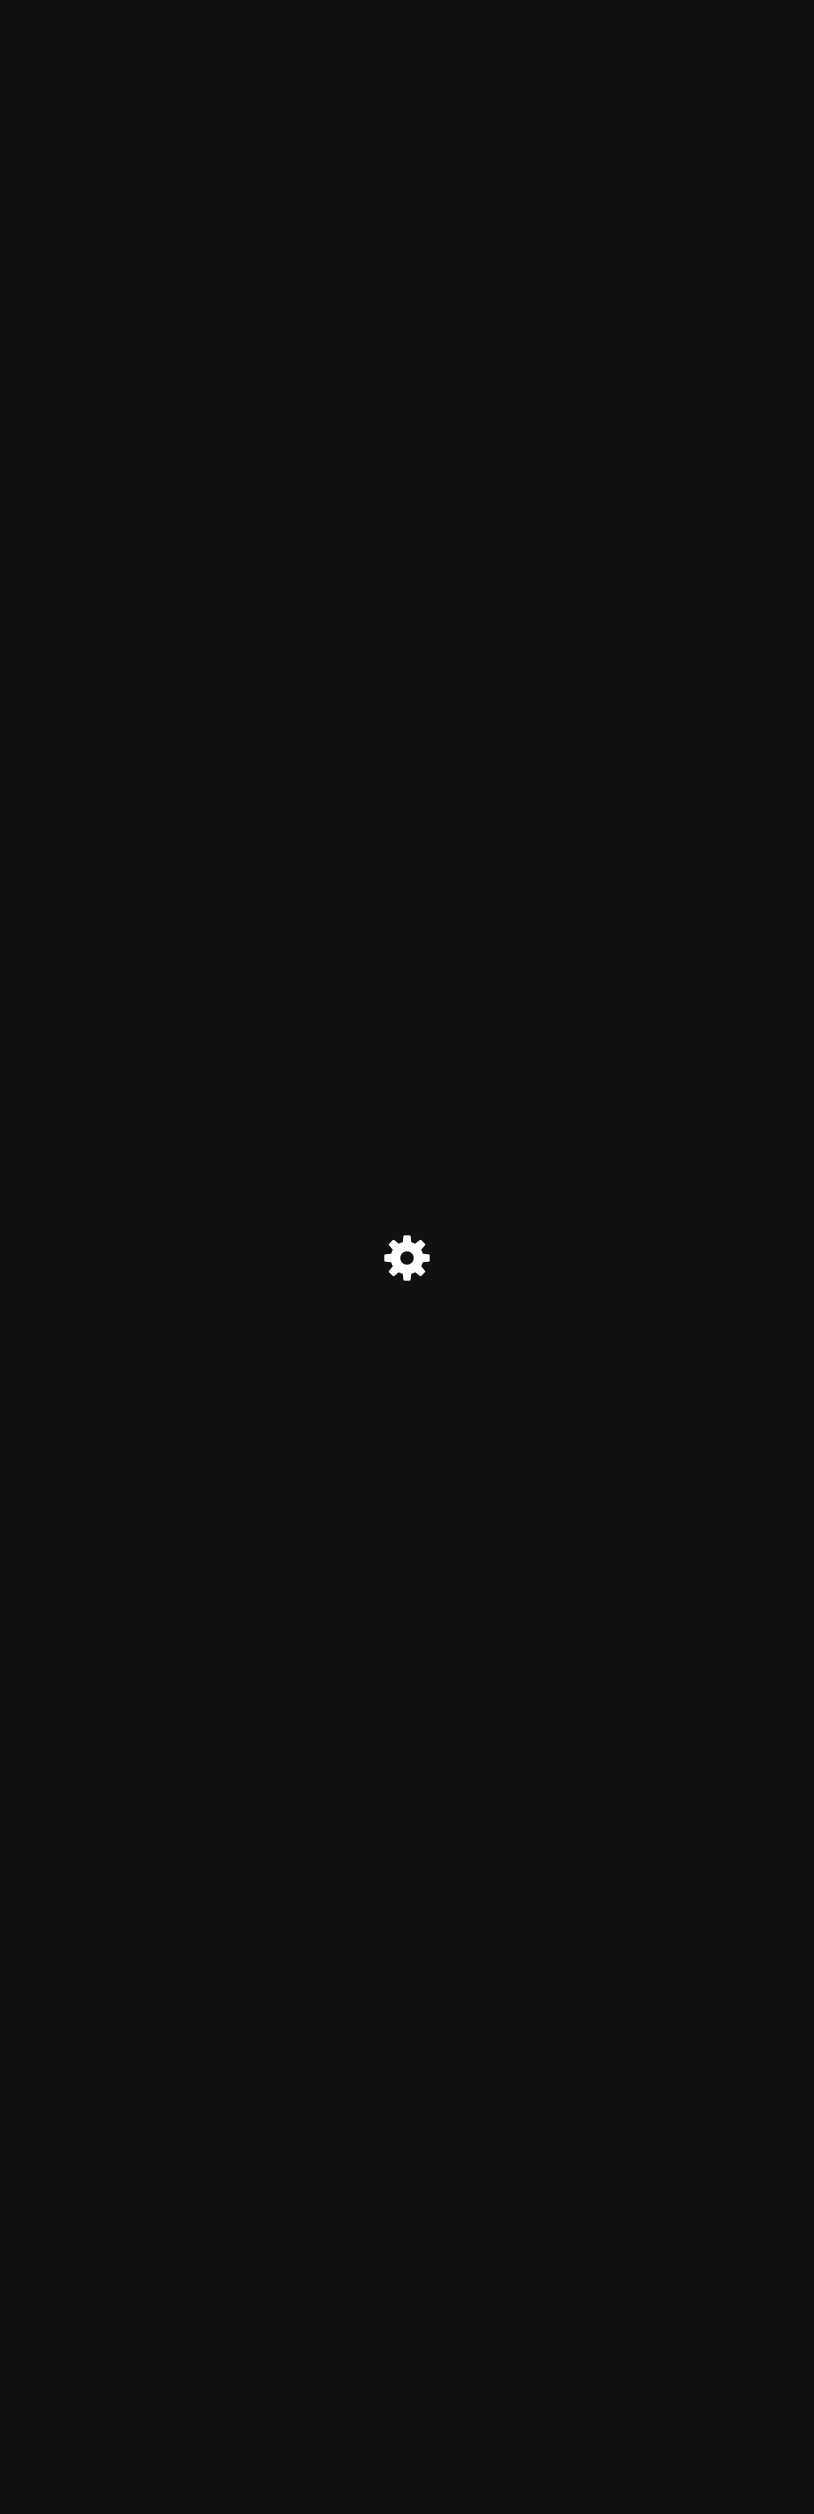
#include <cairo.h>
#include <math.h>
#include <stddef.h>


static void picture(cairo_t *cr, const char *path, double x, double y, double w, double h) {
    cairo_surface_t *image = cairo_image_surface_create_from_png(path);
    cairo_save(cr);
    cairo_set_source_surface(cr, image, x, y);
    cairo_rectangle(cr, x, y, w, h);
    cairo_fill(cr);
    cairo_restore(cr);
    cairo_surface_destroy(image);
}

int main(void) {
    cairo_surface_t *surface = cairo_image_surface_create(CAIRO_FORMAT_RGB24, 814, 2514);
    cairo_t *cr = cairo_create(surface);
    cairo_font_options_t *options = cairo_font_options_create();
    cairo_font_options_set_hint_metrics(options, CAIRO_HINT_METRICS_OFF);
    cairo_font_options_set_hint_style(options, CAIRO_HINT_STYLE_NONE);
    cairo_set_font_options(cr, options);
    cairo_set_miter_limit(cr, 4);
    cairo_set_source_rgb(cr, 0.067, 0.067, 0.067);
    cairo_paint(cr);
    picture(cr, "img1.png", 384, 1235, 46, 46);
    cairo_surface_write_to_png(surface, "page.png");
    cairo_font_options_destroy(options);
    cairo_destroy(cr);
    cairo_surface_destroy(surface);
    return 0;
}
